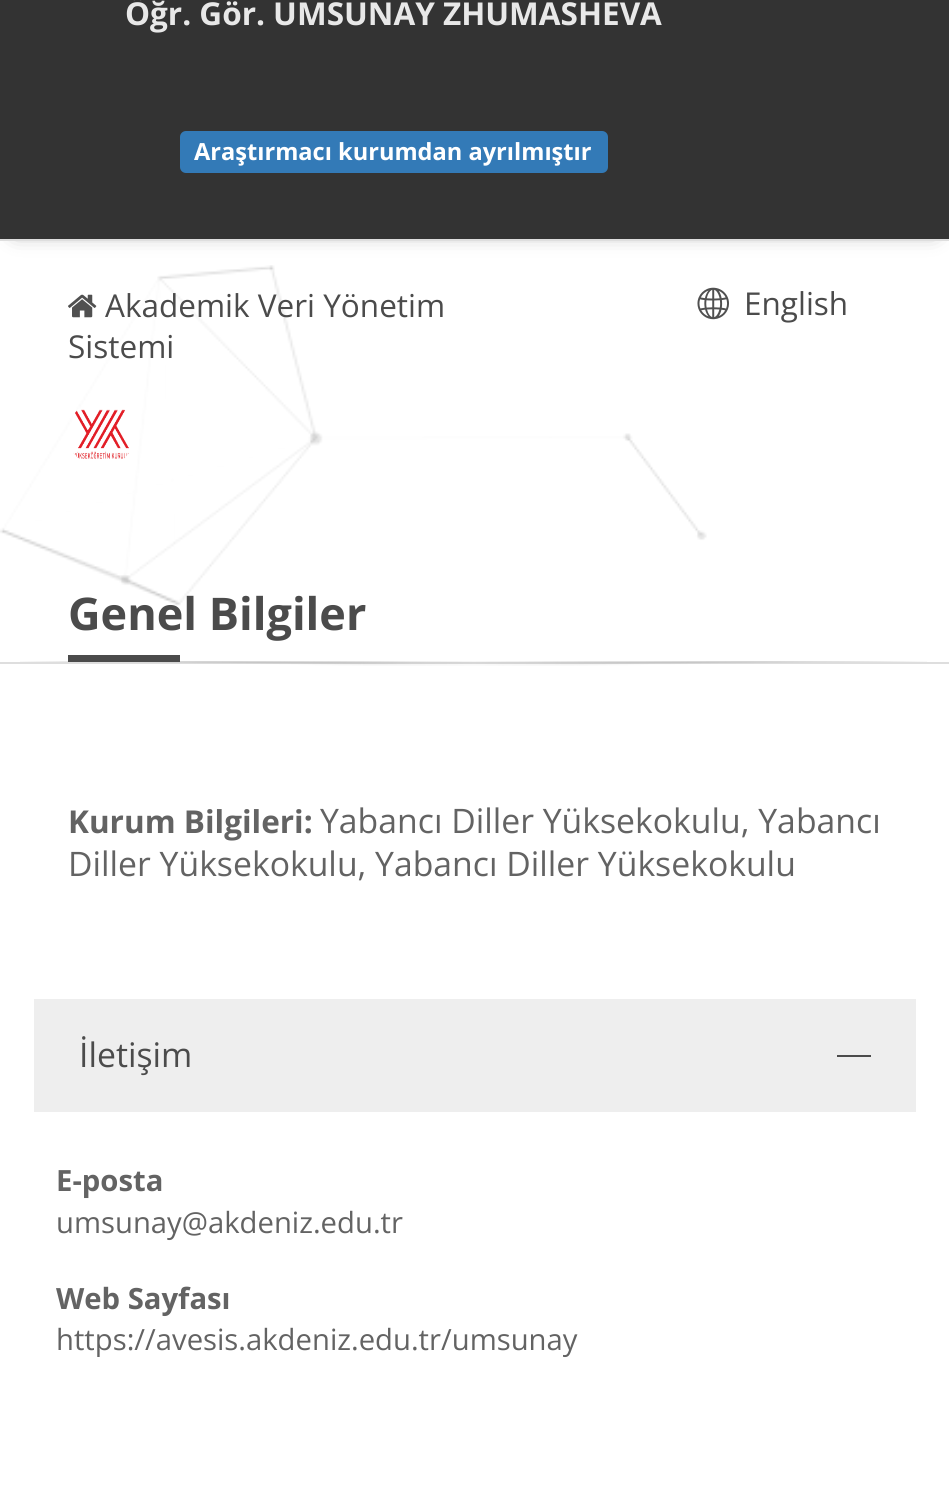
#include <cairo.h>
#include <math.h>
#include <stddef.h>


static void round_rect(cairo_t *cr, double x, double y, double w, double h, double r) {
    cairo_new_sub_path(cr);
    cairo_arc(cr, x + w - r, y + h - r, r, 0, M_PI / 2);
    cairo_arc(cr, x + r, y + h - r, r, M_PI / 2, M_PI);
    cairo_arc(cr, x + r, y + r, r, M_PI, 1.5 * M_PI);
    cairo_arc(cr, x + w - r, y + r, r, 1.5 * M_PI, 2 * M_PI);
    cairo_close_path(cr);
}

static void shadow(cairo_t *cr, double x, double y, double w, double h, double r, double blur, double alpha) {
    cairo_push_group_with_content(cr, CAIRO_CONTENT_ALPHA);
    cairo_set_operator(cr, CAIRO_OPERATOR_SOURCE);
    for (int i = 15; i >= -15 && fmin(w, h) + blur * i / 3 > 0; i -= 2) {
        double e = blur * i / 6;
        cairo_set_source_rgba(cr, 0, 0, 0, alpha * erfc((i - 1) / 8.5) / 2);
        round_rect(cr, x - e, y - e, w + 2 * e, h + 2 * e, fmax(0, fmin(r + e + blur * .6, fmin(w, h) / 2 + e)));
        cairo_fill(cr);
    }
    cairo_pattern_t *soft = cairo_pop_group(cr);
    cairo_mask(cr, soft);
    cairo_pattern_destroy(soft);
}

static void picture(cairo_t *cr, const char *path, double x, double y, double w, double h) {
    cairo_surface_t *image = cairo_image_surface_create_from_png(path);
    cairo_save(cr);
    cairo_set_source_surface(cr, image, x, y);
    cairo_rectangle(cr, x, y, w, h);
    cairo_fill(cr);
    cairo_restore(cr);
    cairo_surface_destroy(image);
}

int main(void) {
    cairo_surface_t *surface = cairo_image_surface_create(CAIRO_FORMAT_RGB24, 949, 1509);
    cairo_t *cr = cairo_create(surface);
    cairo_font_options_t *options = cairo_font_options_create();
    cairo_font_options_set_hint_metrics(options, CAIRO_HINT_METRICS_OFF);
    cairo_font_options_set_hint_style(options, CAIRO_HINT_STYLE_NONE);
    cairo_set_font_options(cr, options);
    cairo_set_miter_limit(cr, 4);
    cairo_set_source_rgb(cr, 1, 1, 1);
    cairo_paint(cr);
    cairo_set_source_rgb(cr, 0, 0, 0);
    shadow(cr, 16, -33, 918, 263, 0, 11, 0.5);
    cairo_set_source_rgb(cr, 0.2, 0.2, 0.2);
    cairo_rectangle(cr, 0, 0, 949, 239);
    cairo_fill(cr);
    cairo_set_source_rgb(cr, 0.871, 0.871, 0.871);
    cairo_rectangle(cr, 0, 239, 949, 2);
    cairo_fill(cr);
    cairo_select_font_face(cr, "Open Sans", CAIRO_FONT_SLANT_NORMAL, CAIRO_FONT_WEIGHT_BOLD);
    cairo_set_font_size(cr, 31.5);
    cairo_set_source_rgb(cr, 0.91, 0.91, 0.91);
    cairo_move_to(cr, 125, 25);
    cairo_show_text(cr, "Öğr. Gör. UMSUNAY ZHUMASHEVA");
    cairo_set_source_rgb(cr, 0.2, 0.478, 0.718);
    round_rect(cr, 180, 131, 428, 42, 6);
    cairo_fill(cr);
    cairo_set_font_size(cr, 23.6);
    cairo_set_source_rgb(cr, 1, 1, 1);
    cairo_move_to(cr, 194, 160);
    cairo_show_text(cr, "Araştırmacı kurumdan ayrılmıştır");
    cairo_set_source_rgb(cr, 0.871, 0.871, 0.871);
    cairo_rectangle(cr, 0, 662, 949, 2);
    cairo_fill(cr);
    picture(cr, "img1.png", 0, 265, 707, 341);
    picture(cr, "img2.png", 68, 294, 29, 24);
    cairo_select_font_face(cr, "Open Sans", CAIRO_FONT_SLANT_NORMAL, CAIRO_FONT_WEIGHT_NORMAL);
    cairo_set_font_size(cr, 31.5);
    cairo_set_source_rgb(cr, 0.294, 0.294, 0.294);
    cairo_move_to(cr, 105, 317);
    cairo_show_text(cr, "Akademik Veri Yönetim");
    cairo_move_to(cr, 68, 358);
    cairo_show_text(cr, "Sistemi");
    picture(cr, "img3.png", 697, 287, 32, 33);
    cairo_move_to(cr, 744, 315);
    cairo_show_text(cr, "English");
    picture(cr, "img4.png", 73, 409, 56, 50);
    cairo_select_font_face(cr, "Open Sans", CAIRO_FONT_SLANT_NORMAL, CAIRO_FONT_WEIGHT_BOLD);
    cairo_set_font_size(cr, 45);
    cairo_move_to(cr, 68, 630);
    cairo_show_text(cr, "Genel Bilgiler");
    picture(cr, "img5.png", 20, 661, 907, 5);
    cairo_rectangle(cr, 68, 655, 112, 7);
    cairo_fill(cr);
    cairo_set_font_size(cr, 31.5);
    cairo_set_source_rgb(cr, 0.388, 0.388, 0.388);
    cairo_move_to(cr, 68, 833);
    cairo_show_text(cr, "Kurum Bilgileri:");
    cairo_select_font_face(cr, "Open Sans", CAIRO_FONT_SLANT_NORMAL, CAIRO_FONT_WEIGHT_NORMAL);
    cairo_set_font_size(cr, 33.75);
    cairo_move_to(cr, 320, 833);
    cairo_show_text(cr, "Yabancı Diller Yüksekokulu, Yabancı");
    cairo_move_to(cr, 68, 876);
    cairo_show_text(cr, "Diller Yüksekokulu, Yabancı Diller Yüksekokulu");
    cairo_set_source_rgb(cr, 0.933, 0.933, 0.933);
    cairo_rectangle(cr, 34, 999, 882, 113);
    cairo_fill(cr);
    cairo_set_source_rgb(cr, 0.294, 0.294, 0.294);
    cairo_move_to(cr, 79, 1067);
    cairo_show_text(cr, "İletişim");
    cairo_rectangle(cr, 837, 1055, 34, 2);
    cairo_fill(cr);
    cairo_select_font_face(cr, "Open Sans", CAIRO_FONT_SLANT_NORMAL, CAIRO_FONT_WEIGHT_BOLD);
    cairo_set_font_size(cr, 29.25);
    cairo_set_source_rgb(cr, 0.388, 0.388, 0.388);
    cairo_move_to(cr, 56, 1191);
    cairo_show_text(cr, "E-posta");
    cairo_select_font_face(cr, "Open Sans", CAIRO_FONT_SLANT_NORMAL, CAIRO_FONT_WEIGHT_NORMAL);
    cairo_move_to(cr, 56, 1233);
    cairo_show_text(cr, "umsunay@akdeniz.edu.tr");
    cairo_select_font_face(cr, "Open Sans", CAIRO_FONT_SLANT_NORMAL, CAIRO_FONT_WEIGHT_BOLD);
    cairo_move_to(cr, 56, 1309);
    cairo_show_text(cr, "Web Sayfası");
    cairo_select_font_face(cr, "Open Sans", CAIRO_FONT_SLANT_NORMAL, CAIRO_FONT_WEIGHT_NORMAL);
    cairo_move_to(cr, 56, 1350);
    cairo_show_text(cr, "https://avesis.akdeniz.edu.tr/umsunay");
    cairo_surface_write_to_png(surface, "page.png");
    cairo_font_options_destroy(options);
    cairo_destroy(cr);
    cairo_surface_destroy(surface);
    return 0;
}
